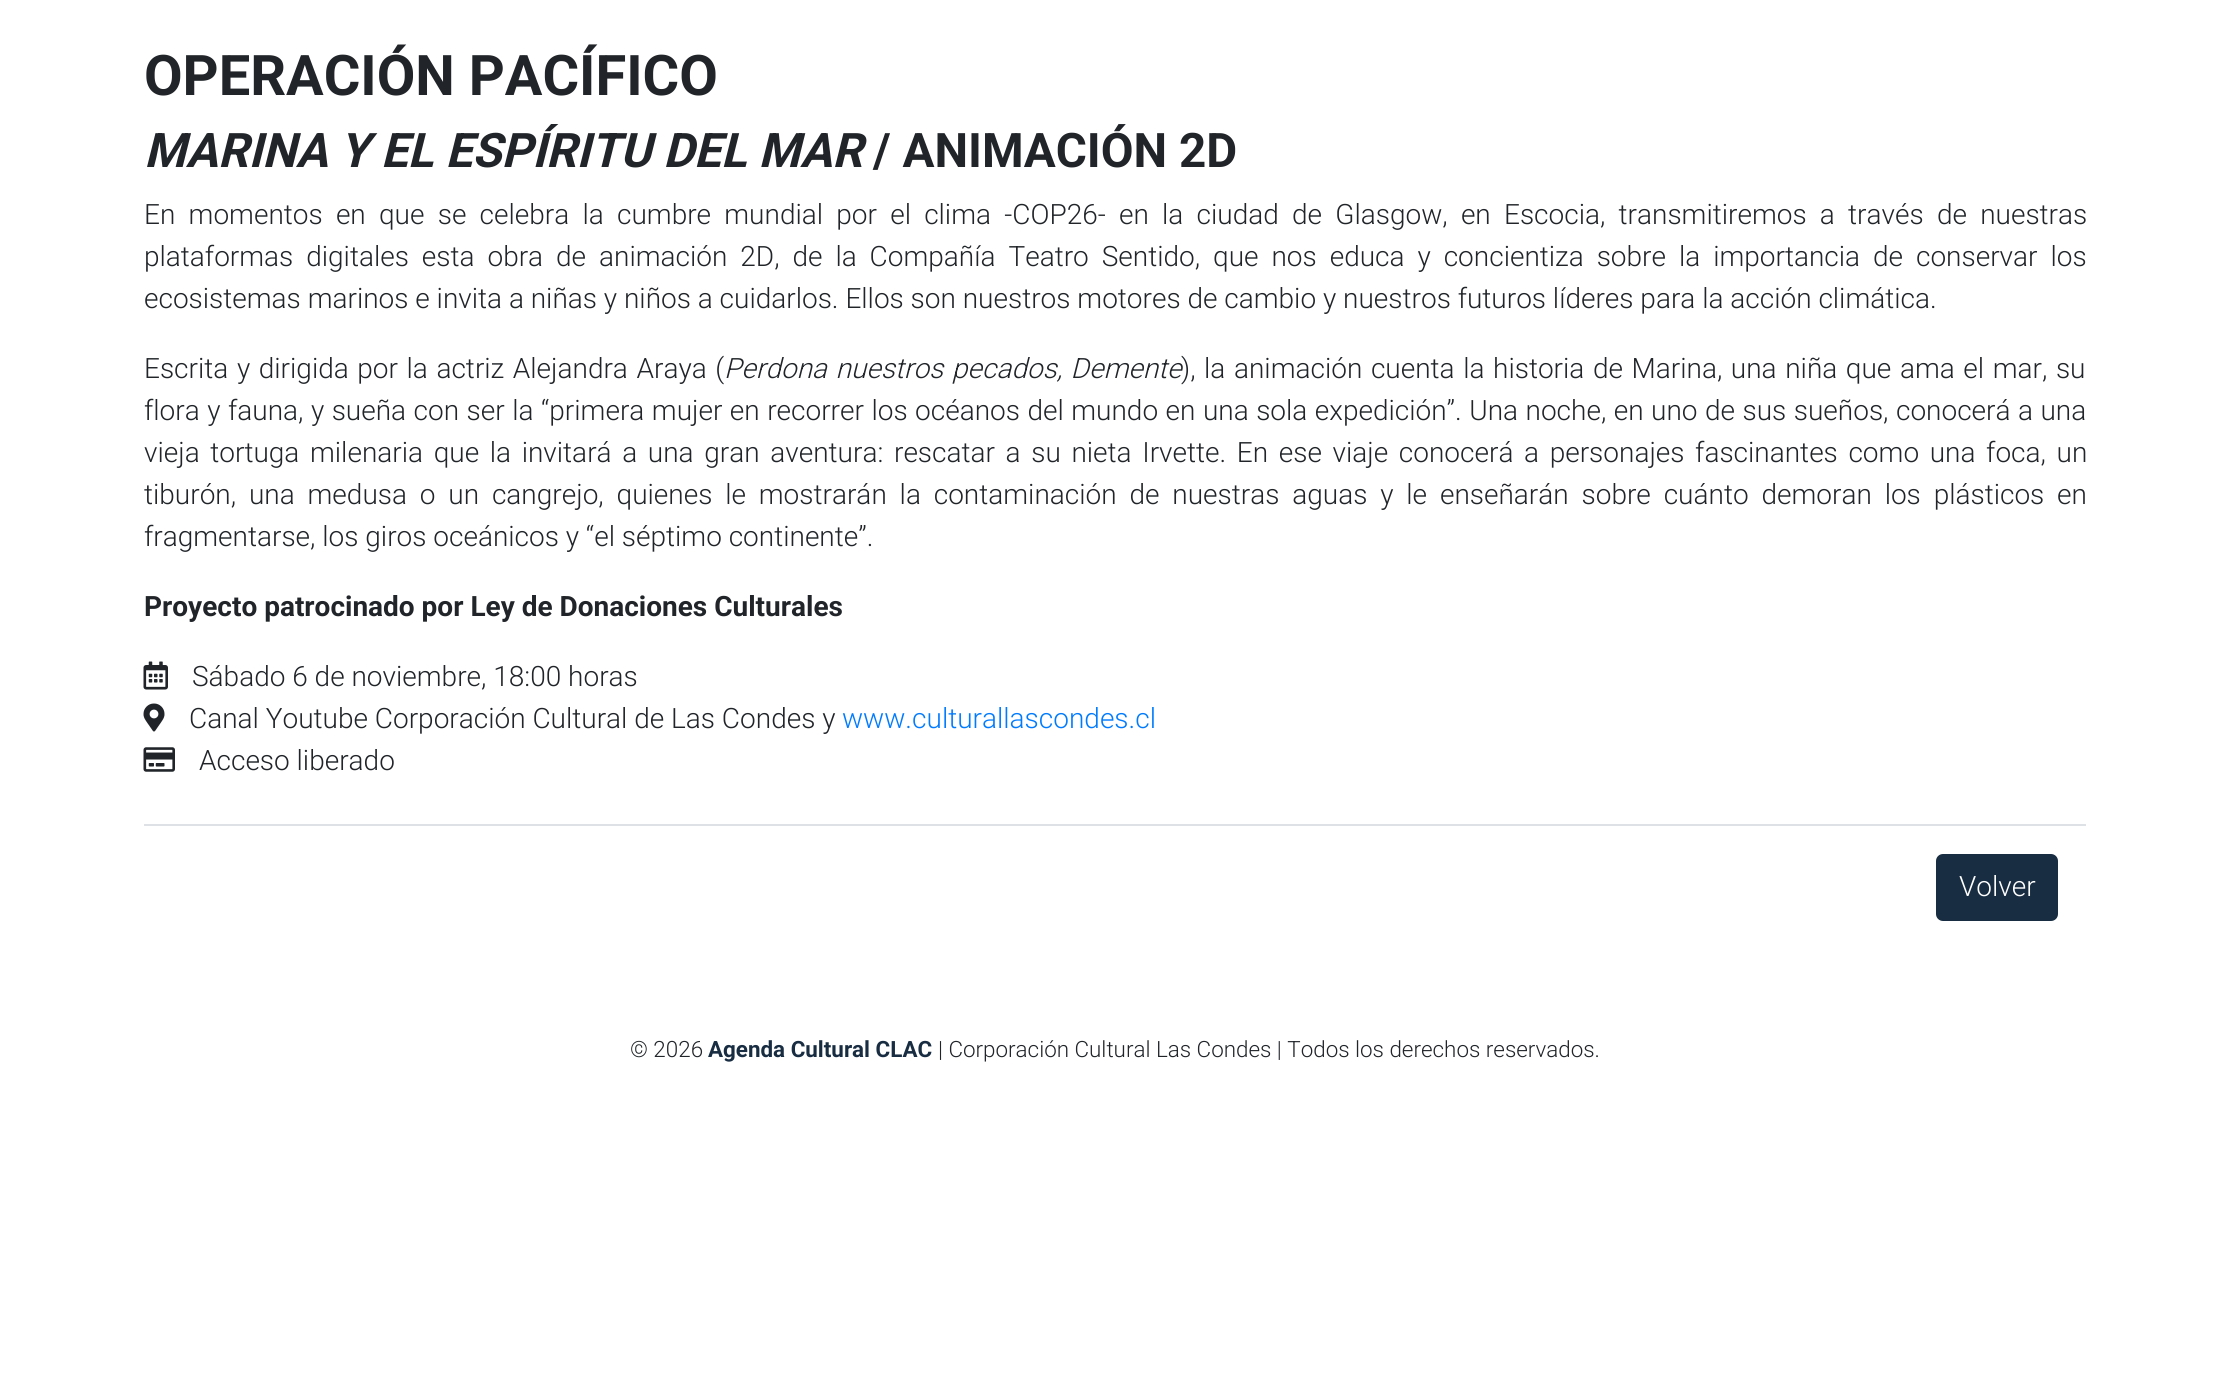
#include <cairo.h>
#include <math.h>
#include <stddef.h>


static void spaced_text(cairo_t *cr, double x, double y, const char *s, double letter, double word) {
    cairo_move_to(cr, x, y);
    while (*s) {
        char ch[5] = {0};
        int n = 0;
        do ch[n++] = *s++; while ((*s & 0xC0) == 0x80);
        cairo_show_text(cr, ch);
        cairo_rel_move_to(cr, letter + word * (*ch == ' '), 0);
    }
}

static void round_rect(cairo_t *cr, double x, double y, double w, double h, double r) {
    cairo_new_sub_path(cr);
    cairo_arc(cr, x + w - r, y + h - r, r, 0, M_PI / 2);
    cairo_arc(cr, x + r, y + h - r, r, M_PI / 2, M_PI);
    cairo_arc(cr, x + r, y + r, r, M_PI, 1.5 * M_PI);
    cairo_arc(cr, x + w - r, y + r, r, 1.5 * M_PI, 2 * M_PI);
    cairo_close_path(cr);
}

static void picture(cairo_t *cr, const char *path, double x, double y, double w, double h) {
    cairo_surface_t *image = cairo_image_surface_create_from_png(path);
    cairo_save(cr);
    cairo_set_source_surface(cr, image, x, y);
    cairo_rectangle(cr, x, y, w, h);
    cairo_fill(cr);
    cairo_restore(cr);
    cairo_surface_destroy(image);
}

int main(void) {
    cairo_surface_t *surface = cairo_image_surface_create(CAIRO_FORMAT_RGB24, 2229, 1373);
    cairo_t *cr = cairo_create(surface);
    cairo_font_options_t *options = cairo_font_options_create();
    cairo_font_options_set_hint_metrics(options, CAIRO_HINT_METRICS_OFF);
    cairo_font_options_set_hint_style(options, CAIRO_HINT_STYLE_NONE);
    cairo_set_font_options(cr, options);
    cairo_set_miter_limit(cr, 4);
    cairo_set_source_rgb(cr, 1, 1, 1);
    cairo_paint(cr);
    cairo_select_font_face(cr, "Roboto", CAIRO_FONT_SLANT_NORMAL, CAIRO_FONT_WEIGHT_BOLD);
    cairo_set_font_size(cr, 56);
    cairo_set_source_rgb(cr, 0.129, 0.145, 0.161);
    cairo_move_to(cr, 144, 95);
    cairo_show_text(cr, "OPERACIÓN PACÍFICO");
    cairo_select_font_face(cr, "Roboto", CAIRO_FONT_SLANT_ITALIC, CAIRO_FONT_WEIGHT_BOLD);
    cairo_set_font_size(cr, 47.6);
    cairo_move_to(cr, 144, 167);
    cairo_show_text(cr, "MARINA Y EL ESPÍRITU DEL MAR");
    cairo_select_font_face(cr, "Roboto", CAIRO_FONT_SLANT_NORMAL, CAIRO_FONT_WEIGHT_BOLD);
    cairo_move_to(cr, 873, 167);
    cairo_show_text(cr, "/ ANIMACIÓN 2D");
    cairo_select_font_face(cr, "Roboto Light", CAIRO_FONT_SLANT_NORMAL, CAIRO_FONT_WEIGHT_NORMAL);
    cairo_set_font_size(cr, 28);
    spaced_text(cr, 144, 224, "En momentos en que se celebra la cumbre mundial por el clima -COP26- en la ciudad de Glasgow, en Escocia, transmitiremos a través de nuestras", 0, 6.4);
    spaced_text(cr, 144, 266, "plataformas digitales esta obra de animación 2D, de la Compañía Teatro Sentido, que nos educa y concientiza sobre la importancia de conservar los", 0, 6.1);
    cairo_move_to(cr, 144, 308);
    cairo_show_text(cr, "ecosistemas marinos e invita a niñas y niños a cuidarlos. Ellos son nuestros motores de cambio y nuestros futuros líderes para la acción climática.");
    spaced_text(cr, 144, 378, "Escrita y dirigida por la actriz Alejandra Araya (", 0, 1.75);
    cairo_select_font_face(cr, "Roboto Light", CAIRO_FONT_SLANT_ITALIC, CAIRO_FONT_WEIGHT_NORMAL);
    spaced_text(cr, 724, 378, "Perdona nuestros pecados, Demente", 0, 1.75);
    cairo_select_font_face(cr, "Roboto Light", CAIRO_FONT_SLANT_NORMAL, CAIRO_FONT_WEIGHT_NORMAL);
    spaced_text(cr, 1181, 378, "), la animación cuenta la historia de Marina, una niña que ama el mar, su", 0, 1.75);
    spaced_text(cr, 144, 420, "flora y fauna, y sueña con ser la “primera mujer en recorrer los océanos del mundo en una sola expedición”. Una noche, en uno de sus sueños, conocerá a una", 0, 0.65);
    spaced_text(cr, 144, 462, "vieja tortuga milenaria que la invitará a una gran aventura: rescatar a su nieta Irvette. En ese viaje conocerá a personajes fascinantes como una foca, un", 0, 3.8);
    spaced_text(cr, 144, 504, "tiburón, una medusa o un cangrejo, quienes le mostrarán la contaminación de nuestras aguas y le enseñarán sobre cuánto demoran los plásticos en", 0, 6);
    cairo_move_to(cr, 144, 546);
    cairo_show_text(cr, "fragmentarse, los giros oceánicos y “el séptimo continente”.");
    cairo_select_font_face(cr, "Roboto", CAIRO_FONT_SLANT_NORMAL, CAIRO_FONT_WEIGHT_BOLD);
    cairo_move_to(cr, 144, 616);
    cairo_show_text(cr, "Proyecto patrocinado por Ley de Donaciones Culturales");
    picture(cr, "img1.png", 143, 661, 25, 29);
    cairo_select_font_face(cr, "Roboto Light", CAIRO_FONT_SLANT_NORMAL, CAIRO_FONT_WEIGHT_NORMAL);
    cairo_move_to(cr, 192, 686);
    cairo_show_text(cr, "Sábado 6 de noviembre, 18:00 horas");
    picture(cr, "img2.png", 143, 703, 22, 29);
    cairo_move_to(cr, 189, 728);
    cairo_show_text(cr, "Canal Youtube Corporación Cultural de Las Condes y");
    cairo_set_source_rgb(cr, 0, 0.482, 1);
    cairo_move_to(cr, 842, 728);
    cairo_show_text(cr, "www.culturallascondes.cl");
    picture(cr, "img3.png", 143, 747, 32, 25);
    cairo_set_source_rgb(cr, 0.129, 0.145, 0.161);
    cairo_move_to(cr, 199, 770);
    cairo_show_text(cr, "Acceso liberado");
    cairo_set_source_rgb(cr, 0.871, 0.886, 0.902);
    cairo_rectangle(cr, 144, 824, 1942, 2);
    cairo_fill(cr);
    cairo_set_source_rgb(cr, 0.094, 0.176, 0.259);
    round_rect(cr, 1937, 855, 120, 65, 6);
    cairo_fill_preserve(cr);
    cairo_stroke(cr);
    cairo_set_source_rgb(cr, 1, 1, 1);
    cairo_move_to(cr, 1959, 896);
    cairo_show_text(cr, "Volver");
    cairo_set_font_size(cr, 22.4);
    cairo_set_source_rgb(cr, 0.129, 0.145, 0.161);
    cairo_move_to(cr, 630, 1057);
    cairo_show_text(cr, "© 2026");
    cairo_select_font_face(cr, "Roboto", CAIRO_FONT_SLANT_NORMAL, CAIRO_FONT_WEIGHT_BOLD);
    cairo_set_source_rgb(cr, 0.094, 0.176, 0.259);
    cairo_move_to(cr, 708, 1057);
    cairo_show_text(cr, "Agenda Cultural CLAC");
    cairo_select_font_face(cr, "Roboto Light", CAIRO_FONT_SLANT_NORMAL, CAIRO_FONT_WEIGHT_NORMAL);
    cairo_set_source_rgb(cr, 0.129, 0.145, 0.161);
    cairo_move_to(cr, 938, 1057);
    cairo_show_text(cr, "| Corporación Cultural Las Condes | Todos los derechos reservados.");
    cairo_surface_write_to_png(surface, "page.png");
    cairo_font_options_destroy(options);
    cairo_destroy(cr);
    cairo_surface_destroy(surface);
    return 0;
}
